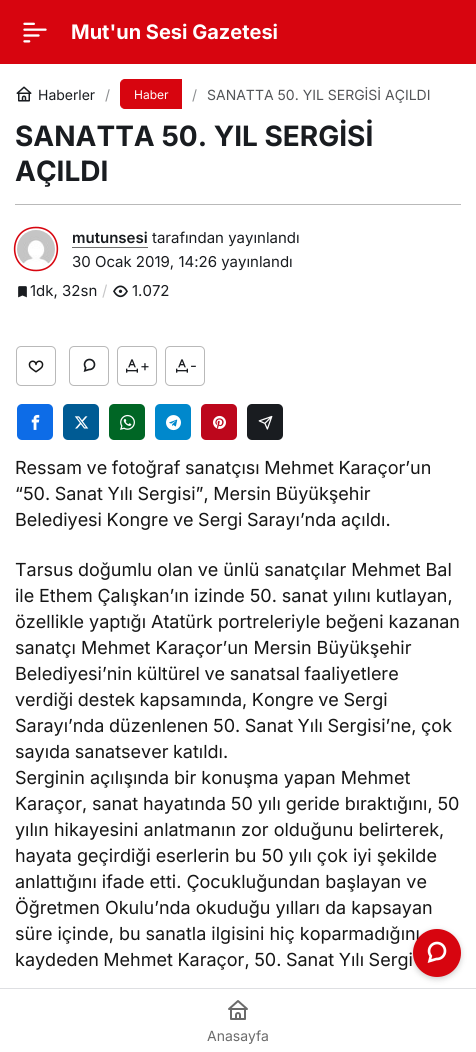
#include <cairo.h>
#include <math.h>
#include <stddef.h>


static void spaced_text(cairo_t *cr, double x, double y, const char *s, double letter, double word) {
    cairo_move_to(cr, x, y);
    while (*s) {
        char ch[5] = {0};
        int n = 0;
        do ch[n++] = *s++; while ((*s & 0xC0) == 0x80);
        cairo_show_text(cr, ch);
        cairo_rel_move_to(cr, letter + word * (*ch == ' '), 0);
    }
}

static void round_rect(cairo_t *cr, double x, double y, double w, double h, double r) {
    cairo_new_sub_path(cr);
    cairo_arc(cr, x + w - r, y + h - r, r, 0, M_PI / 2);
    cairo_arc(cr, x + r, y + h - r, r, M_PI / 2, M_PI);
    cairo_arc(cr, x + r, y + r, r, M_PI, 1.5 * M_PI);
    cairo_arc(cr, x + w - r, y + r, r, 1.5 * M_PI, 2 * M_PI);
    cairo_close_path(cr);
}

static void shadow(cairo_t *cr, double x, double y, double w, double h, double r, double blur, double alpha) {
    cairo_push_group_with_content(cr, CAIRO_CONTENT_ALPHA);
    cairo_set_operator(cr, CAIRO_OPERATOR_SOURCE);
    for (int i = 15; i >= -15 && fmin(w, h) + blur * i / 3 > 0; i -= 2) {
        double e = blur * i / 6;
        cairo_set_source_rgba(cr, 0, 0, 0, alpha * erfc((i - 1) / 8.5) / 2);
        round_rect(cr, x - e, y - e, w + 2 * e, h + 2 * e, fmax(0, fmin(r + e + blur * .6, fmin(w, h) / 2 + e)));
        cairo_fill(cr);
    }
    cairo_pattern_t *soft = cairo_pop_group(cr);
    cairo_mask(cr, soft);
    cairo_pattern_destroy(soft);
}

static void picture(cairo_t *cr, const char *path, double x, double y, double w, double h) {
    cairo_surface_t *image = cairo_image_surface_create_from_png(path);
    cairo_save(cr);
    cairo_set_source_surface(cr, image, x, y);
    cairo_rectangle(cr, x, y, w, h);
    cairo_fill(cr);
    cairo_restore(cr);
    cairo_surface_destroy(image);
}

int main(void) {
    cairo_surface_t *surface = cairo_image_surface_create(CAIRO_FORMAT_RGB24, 476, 1052);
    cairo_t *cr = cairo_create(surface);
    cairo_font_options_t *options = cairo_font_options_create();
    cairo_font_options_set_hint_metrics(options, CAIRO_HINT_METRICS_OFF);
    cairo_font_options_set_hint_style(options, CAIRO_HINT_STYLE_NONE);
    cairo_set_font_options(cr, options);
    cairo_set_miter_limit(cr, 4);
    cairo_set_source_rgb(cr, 1, 1, 1);
    cairo_paint(cr);
    cairo_set_source_rgb(cr, 0.843, 0.02, 0.059);
    cairo_rectangle(cr, 0, 0, 476, 64);
    cairo_fill(cr);
    picture(cr, "img1.png", 23, 22, 24, 21);
    cairo_select_font_face(cr, "Inter", CAIRO_FONT_SLANT_NORMAL, CAIRO_FONT_WEIGHT_BOLD);
    cairo_set_font_size(cr, 20);
    cairo_set_source_rgb(cr, 1, 1, 1);
    cairo_move_to(cr, 71, 39);
    cairo_show_text(cr, "Mut'un Sesi Gazetesi");
    picture(cr, "img2.png", 16, 86, 16, 16);
    cairo_select_font_face(cr, "Inter", CAIRO_FONT_SLANT_NORMAL, CAIRO_FONT_WEIGHT_NORMAL);
    cairo_set_font_size(cr, 14);
    cairo_set_source_rgb(cr, 0.098, 0.11, 0.125);
    cairo_move_to(cr, 38, 100);
    cairo_show_text(cr, "Haberler");
    cairo_set_source_rgb(cr, 0.549, 0.557, 0.565);
    cairo_move_to(cr, 105, 100);
    cairo_show_text(cr, "/");
    cairo_set_source_rgb(cr, 0.843, 0.02, 0.059);
    cairo_new_path(cr);
    cairo_move_to(cr, 125, 79.5);
    cairo_line_to(cr, 181.5, 79.5);
    cairo_line_to(cr, 181.5, 108.5);
    cairo_line_to(cr, 125, 108.5);
    cairo_curve_to(cr, 122.5, 108.5, 120.5, 106.5, 120.5, 104);
    cairo_line_to(cr, 120.5, 84);
    cairo_curve_to(cr, 120.5, 81.5, 122.5, 79.5, 125, 79.5);
    cairo_close_path(cr);
    cairo_fill_preserve(cr);
    cairo_set_line_width(cr, 1);
    cairo_stroke(cr);
    cairo_set_font_size(cr, 12);
    cairo_set_source_rgb(cr, 1, 1, 1);
    cairo_move_to(cr, 134, 99);
    cairo_show_text(cr, "Haber");
    cairo_set_font_size(cr, 14);
    cairo_set_source_rgb(cr, 0.549, 0.557, 0.565);
    cairo_move_to(cr, 192, 100);
    cairo_show_text(cr, "/");
    cairo_set_source_rgb(cr, 0.325, 0.333, 0.345);
    cairo_move_to(cr, 207, 100);
    cairo_show_text(cr, "SANATTA 50. YIL SERGİSİ AÇILDI");
    cairo_select_font_face(cr, "Inter", CAIRO_FONT_SLANT_NORMAL, CAIRO_FONT_WEIGHT_BOLD);
    cairo_set_font_size(cr, 28);
    cairo_set_source_rgb(cr, 0.098, 0.11, 0.125);
    cairo_move_to(cr, 15, 146);
    cairo_show_text(cr, "SANATTA 50. YIL SERGİSİ");
    cairo_move_to(cr, 15, 181);
    cairo_show_text(cr, "AÇILDI");
    cairo_set_source_rgb(cr, 0.725, 0.725, 0.725);
    cairo_rectangle(cr, 15, 204, 446, 1);
    cairo_fill(cr);
    picture(cr, "img3.png", 17, 230, 38, 36);
    cairo_new_path(cr);
    cairo_move_to(cr, 36, 227.5);
    cairo_curve_to(cr, 64.5, 227.5, 64.5, 270.5, 36, 270.5);
    cairo_curve_to(cr, 7.5, 270.5, 7.5, 227.5, 36, 227.5);
    cairo_close_path(cr);
    cairo_set_source_rgb(cr, 0.843, 0.02, 0.059);
    cairo_set_line_width(cr, 1.6);
    cairo_set_line_cap(cr, CAIRO_LINE_CAP_ROUND);
    cairo_set_dash(cr, (double[]){0.54, 0.54}, 2, 0);
    cairo_stroke(cr);
    cairo_select_font_face(cr, "Inter SemiBold", CAIRO_FONT_SLANT_NORMAL, CAIRO_FONT_WEIGHT_NORMAL);
    cairo_set_font_size(cr, 15);
    cairo_set_source_rgb(cr, 0.098, 0.11, 0.125);
    cairo_move_to(cr, 72, 243);
    cairo_show_text(cr, "mutunsesi");
    cairo_set_source_rgb(cr, 0.431, 0.431, 0.431);
    cairo_rectangle(cr, 72, 247, 76, 1);
    cairo_fill(cr);
    cairo_select_font_face(cr, "Inter", CAIRO_FONT_SLANT_NORMAL, CAIRO_FONT_WEIGHT_NORMAL);
    cairo_set_source_rgb(cr, 0.098, 0.11, 0.125);
    cairo_move_to(cr, 152, 243);
    cairo_show_text(cr, "tarafından yayınlandı");
    cairo_move_to(cr, 72, 267);
    cairo_show_text(cr, "30 Ocak 2019, 14:26 yayınlandı");
    picture(cr, "img4.png", 18, 286, 9, 12);
    cairo_move_to(cr, 30, 296);
    cairo_show_text(cr, "1dk, 32sn");
    cairo_set_source_rgb(cr, 0.776, 0.776, 0.78);
    cairo_move_to(cr, 102, 296);
    cairo_show_text(cr, "/");
    picture(cr, "img5.png", 113, 285, 15, 13);
    cairo_set_source_rgb(cr, 0.098, 0.11, 0.125);
    cairo_move_to(cr, 132, 296);
    cairo_show_text(cr, "1.072");
    round_rect(cr, 16.5, 346.5, 39, 39, 4.5);
    cairo_set_source_rgb(cr, 0.725, 0.725, 0.725);
    cairo_set_line_width(cr, 1);
    cairo_set_line_cap(cr, CAIRO_LINE_CAP_BUTT);
    cairo_set_dash(cr, NULL, 0, 0);
    cairo_stroke(cr);
    picture(cr, "img6.png", 28, 360, 16, 13);
    round_rect(cr, 69.5, 346.5, 39, 39, 4.5);
    cairo_stroke(cr);
    picture(cr, "img7.png", 83, 358, 13, 14);
    round_rect(cr, 117.5, 346.5, 39, 39, 4.5);
    cairo_stroke(cr);
    picture(cr, "img8.png", 126, 359, 12, 14);
    cairo_set_source_rgb(cr, 0.098, 0.11, 0.125);
    cairo_move_to(cr, 140, 371);
    cairo_show_text(cr, "+");
    round_rect(cr, 165.5, 346.5, 39, 39, 4.5);
    cairo_set_source_rgb(cr, 0.725, 0.725, 0.725);
    cairo_stroke(cr);
    picture(cr, "img8.png", 176, 359, 12, 14);
    cairo_set_source_rgb(cr, 0.098, 0.11, 0.125);
    cairo_move_to(cr, 190, 371);
    cairo_show_text(cr, "-");
    cairo_set_source_rgb(cr, 0.051, 0.424, 0.906);
    round_rect(cr, 17, 404, 36, 36, 5);
    cairo_fill(cr);
    picture(cr, "img9.png", 31, 414, 9, 16);
    cairo_set_source_rgb(cr, 0, 0.357, 0.58);
    round_rect(cr, 63, 404, 36, 36, 5);
    cairo_fill(cr);
    picture(cr, "img10.png", 74, 416, 15, 13);
    cairo_set_source_rgb(cr, 0, 0.4, 0.145);
    round_rect(cr, 109, 404, 36, 36, 5);
    cairo_fill(cr);
    picture(cr, "img11.png", 120, 414, 15, 16);
    cairo_set_source_rgb(cr, 0, 0.533, 0.8);
    round_rect(cr, 155, 404, 36, 36, 5);
    cairo_fill(cr);
    picture(cr, "img12.png", 166, 415, 15, 16);
    cairo_set_source_rgb(cr, 0.741, 0.031, 0.11);
    round_rect(cr, 201, 404, 36, 36, 5);
    cairo_fill(cr);
    picture(cr, "img13.png", 213, 415, 13, 14);
    cairo_set_source_rgb(cr, 0.098, 0.11, 0.125);
    round_rect(cr, 247, 404, 36, 36, 5);
    cairo_fill(cr);
    picture(cr, "img14.png", 258, 415, 15, 15);
    cairo_set_font_size(cr, 18);
    cairo_set_source_rgb(cr, 0.086, 0.086, 0.086);
    spaced_text(cr, 15, 474, "Ressam ve fotoğraf sanatçısı Mehmet Karaçor’un", 0, -0.5);
    spaced_text(cr, 15, 500, "“50. Sanat Yılı Sergisi”, Mersin Büyükşehir", 0, -0.5);
    spaced_text(cr, 15, 526, "Belediyesi Kongre ve Sergi Sarayı’nda açıldı.", 0, -0.5);
    spaced_text(cr, 15, 576, "Tarsus doğumlu olan ve ünlü sanatçılar Mehmet Bal", 0, -0.25);
    spaced_text(cr, 15, 602, "ile Ethem Çalışkan’ın izinde 50. sanat yılını kutlayan,", 0, -0.25);
    cairo_move_to(cr, 15, 628);
    cairo_show_text(cr, "özellikle yaptığı Atatürk portreleriyle beğeni kazanan");
    cairo_move_to(cr, 15, 654);
    cairo_show_text(cr, "sanatçı Mehmet Karaçor’un Mersin Büyükşehir");
    spaced_text(cr, 15, 680, "Belediyesi’nin kültürel ve sanatsal faaliyetlere", 0, -0.5);
    spaced_text(cr, 15, 706, "verdiği destek kapsamında, Kongre ve Sergi", 0, -0.5);
    spaced_text(cr, 15, 732, "Sarayı’nda düzenlenen 50. Sanat Yılı Sergisi’ne, çok", 0, -0.5);
    spaced_text(cr, 15, 758, "sayıda sanatsever katıldı.", 0, -0.5);
    cairo_move_to(cr, 15, 784);
    cairo_show_text(cr, "Serginin açılışında bir konuşma yapan Mehmet");
    spaced_text(cr, 15, 810, "Karaçor, sanat hayatında 50 yılı geride bıraktığını, 50", 0, -0.25);
    cairo_move_to(cr, 15, 836);
    cairo_show_text(cr, "yılın hikayesini anlatmanın zor olduğunu belirterek,");
    cairo_move_to(cr, 15, 862);
    cairo_show_text(cr, "hayata geçirdiği eserlerin bu 50 yılı çok iyi şekilde");
    cairo_move_to(cr, 15, 888);
    cairo_show_text(cr, "anlattığını ifade etti. Çocukluğundan başlayan ve");
    cairo_move_to(cr, 15, 914);
    cairo_show_text(cr, "Öğretmen Okulu’nda okuduğu yılları da kapsayan");
    cairo_move_to(cr, 15, 940);
    cairo_show_text(cr, "süre içinde, bu sanatla ilgisini hiç koparmadığını");
    spaced_text(cr, 15, 966, "kaydeden Mehmet Karaçor, 50. Sanat Yılı Sergi", 0, -0.5);
    cairo_set_source_rgb(cr, 0.871, 0.875, 0.886);
    cairo_rectangle(cr, 0, 988, 476, 1);
    cairo_fill(cr);
    cairo_set_source_rgb(cr, 0, 0, 0);
    shadow(cr, 413, 931, 48, 48, 24, 3, 0.2);
    cairo_set_source_rgb(cr, 0.843, 0.02, 0.059);
    cairo_arc(cr, 437, 953, 24, 0, 2 * M_PI);
    cairo_fill(cr);
    picture(cr, "img15.png", 427, 941, 20, 22);
    picture(cr, "img16.png", 228, 1000, 20, 20);
    cairo_set_font_size(cr, 14);
    cairo_set_source_rgb(cr, 0.42, 0.42, 0.42);
    cairo_move_to(cr, 207, 1041);
    cairo_show_text(cr, "Anasayfa");
    cairo_surface_write_to_png(surface, "page.png");
    cairo_font_options_destroy(options);
    cairo_destroy(cr);
    cairo_surface_destroy(surface);
    return 0;
}
